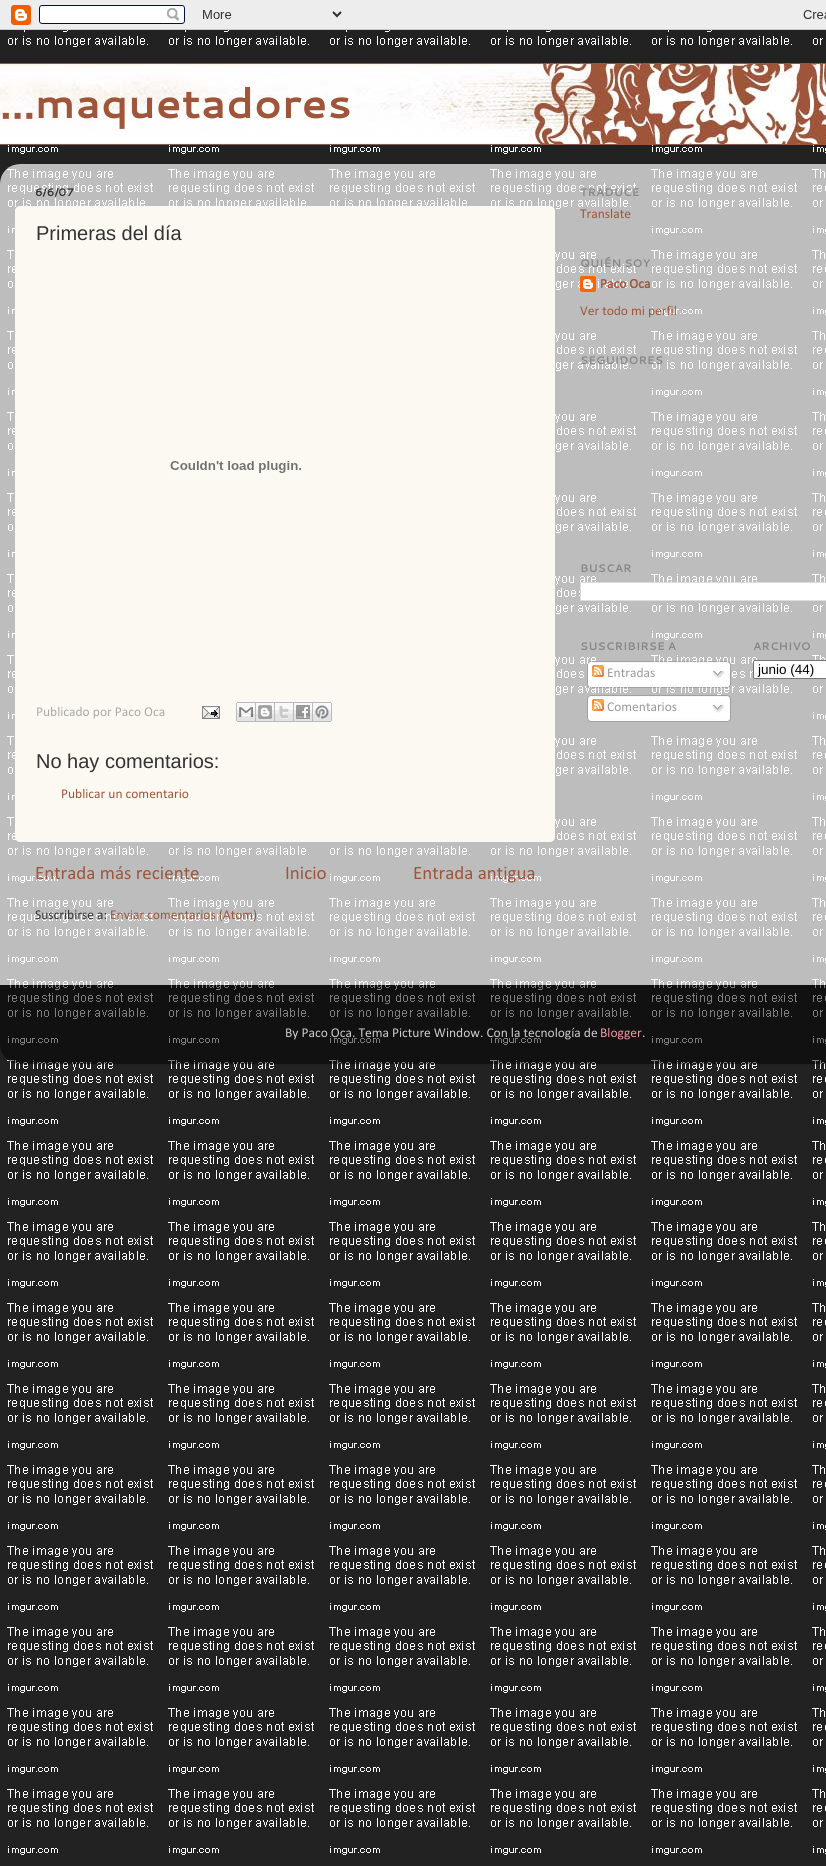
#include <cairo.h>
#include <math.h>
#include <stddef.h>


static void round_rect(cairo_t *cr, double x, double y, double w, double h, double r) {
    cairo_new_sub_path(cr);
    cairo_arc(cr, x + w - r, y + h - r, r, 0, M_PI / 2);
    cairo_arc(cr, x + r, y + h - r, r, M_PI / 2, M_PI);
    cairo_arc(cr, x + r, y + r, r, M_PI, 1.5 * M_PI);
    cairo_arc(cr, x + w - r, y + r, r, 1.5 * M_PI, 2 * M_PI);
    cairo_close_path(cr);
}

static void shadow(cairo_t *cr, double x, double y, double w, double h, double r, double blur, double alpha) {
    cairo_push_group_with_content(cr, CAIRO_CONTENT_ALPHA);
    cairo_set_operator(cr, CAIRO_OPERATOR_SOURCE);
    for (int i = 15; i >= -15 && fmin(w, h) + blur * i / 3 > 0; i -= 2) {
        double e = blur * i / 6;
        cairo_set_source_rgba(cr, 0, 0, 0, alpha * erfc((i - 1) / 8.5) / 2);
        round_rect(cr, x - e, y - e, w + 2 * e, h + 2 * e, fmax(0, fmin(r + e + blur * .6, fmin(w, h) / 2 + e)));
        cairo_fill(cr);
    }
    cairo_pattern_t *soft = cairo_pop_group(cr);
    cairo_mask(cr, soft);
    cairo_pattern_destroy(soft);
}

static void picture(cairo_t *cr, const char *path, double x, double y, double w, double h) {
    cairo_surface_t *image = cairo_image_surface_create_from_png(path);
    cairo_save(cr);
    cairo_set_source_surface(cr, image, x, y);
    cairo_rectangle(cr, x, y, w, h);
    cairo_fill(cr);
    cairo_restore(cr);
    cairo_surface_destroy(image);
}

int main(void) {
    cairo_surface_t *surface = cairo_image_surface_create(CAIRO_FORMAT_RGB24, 826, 1866);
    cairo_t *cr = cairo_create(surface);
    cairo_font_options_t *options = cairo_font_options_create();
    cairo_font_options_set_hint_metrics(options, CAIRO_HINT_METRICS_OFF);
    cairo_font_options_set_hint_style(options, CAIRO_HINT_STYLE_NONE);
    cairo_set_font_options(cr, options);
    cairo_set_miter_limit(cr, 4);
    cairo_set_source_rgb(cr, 1, 1, 1);
    cairo_paint(cr);
    picture(cr, "img1.png", 0, 0, 826, 30);
    picture(cr, "img2.png", 0, 30, 826, 1836);
    picture(cr, "img3.png", 0, 63, 826, 82);
    cairo_select_font_face(cr, "Cantarell", CAIRO_FONT_SLANT_NORMAL, CAIRO_FONT_WEIGHT_BOLD);
    cairo_set_font_size(cr, 42);
    cairo_set_source_rgb(cr, 0.624, 0.333, 0.224);
    cairo_move_to(cr, 0, 118);
    cairo_show_text(cr, "...maquetadores");
    cairo_save(cr);
    cairo_set_fill_rule(cr, CAIRO_FILL_RULE_EVEN_ODD);
    cairo_new_path(cr);
    cairo_move_to(cr, 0, 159);
    cairo_line_to(cr, 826, 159);
    cairo_line_to(cr, 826, 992);
    cairo_line_to(cr, 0, 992);
    cairo_close_path(cr);
    cairo_move_to(cr, 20, 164);
    cairo_line_to(cr, 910, 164);
    cairo_curve_to(cr, 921, 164, 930, 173, 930, 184);
    cairo_line_to(cr, 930, 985);
    cairo_line_to(cr, 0, 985);
    cairo_line_to(cr, 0, 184);
    cairo_curve_to(cr, 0, 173, 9, 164, 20, 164);
    cairo_close_path(cr);
    cairo_clip(cr);
    cairo_set_source_rgb(cr, 0, 0, 0);
    shadow(cr, 0, 165, 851, 821, 20, 1.5, 0.15);
    cairo_restore(cr);
    picture(cr, "img4.png", 0, 164, 826, 821);
    cairo_set_font_size(cr, 11);
    cairo_set_source_rgb(cr, 0.2, 0.2, 0.2);
    cairo_move_to(cr, 35, 196);
    cairo_show_text(cr, "6/6/07");
    cairo_set_source_rgb(cr, 0.984, 0.973, 0.945);
    round_rect(cr, 15, 206, 540, 636, 5);
    cairo_fill(cr);
    cairo_select_font_face(cr, "Arimo", CAIRO_FONT_SLANT_NORMAL, CAIRO_FONT_WEIGHT_NORMAL);
    cairo_set_font_size(cr, 20);
    cairo_set_source_rgb(cr, 0.2, 0.2, 0.2);
    cairo_move_to(cr, 36, 240);
    cairo_show_text(cr, "Primeras del día");
    picture(cr, "img5.png", 170, 461, 131, 12);
    cairo_select_font_face(cr, "Calibri", CAIRO_FONT_SLANT_NORMAL, CAIRO_FONT_WEIGHT_NORMAL);
    cairo_set_font_size(cr, 13.5);
    cairo_set_source_rgb(cr, 0.667, 0.667, 0.667);
    cairo_move_to(cr, 36, 716);
    cairo_show_text(cr, "Publicado por Paco Oca");
    picture(cr, "img6.png", 202, 706, 18, 13);
    picture(cr, "img7.png", 236, 702, 20, 20);
    picture(cr, "img8.png", 256, 702, 19, 20);
    picture(cr, "img9.png", 275, 702, 19, 20);
    picture(cr, "img10.png", 294, 702, 19, 20);
    picture(cr, "img11.png", 313, 702, 19, 20);
    cairo_select_font_face(cr, "Arimo", CAIRO_FONT_SLANT_NORMAL, CAIRO_FONT_WEIGHT_NORMAL);
    cairo_set_font_size(cr, 20);
    cairo_set_source_rgb(cr, 0.2, 0.2, 0.2);
    cairo_move_to(cr, 36, 768);
    cairo_show_text(cr, "No hay comentarios:");
    cairo_select_font_face(cr, "Calibri", CAIRO_FONT_SLANT_NORMAL, CAIRO_FONT_WEIGHT_NORMAL);
    cairo_set_font_size(cr, 13.5);
    cairo_set_source_rgb(cr, 0.624, 0.333, 0.224);
    cairo_move_to(cr, 61, 798);
    cairo_show_text(cr, "Publicar un comentario");
    cairo_set_font_size(cr, 19);
    cairo_move_to(cr, 35, 879);
    cairo_show_text(cr, "Entrada más reciente");
    cairo_move_to(cr, 285, 879);
    cairo_show_text(cr, "Inicio");
    cairo_move_to(cr, 413, 879);
    cairo_show_text(cr, "Entrada antigua");
    cairo_set_font_size(cr, 13.5);
    cairo_set_source_rgb(cr, 0.2, 0.2, 0.2);
    cairo_move_to(cr, 35, 919);
    cairo_show_text(cr, "Suscribirse a:");
    cairo_set_source_rgb(cr, 0.624, 0.333, 0.224);
    cairo_move_to(cr, 110, 919);
    cairo_show_text(cr, "Enviar comentarios (Atom)");
    cairo_select_font_face(cr, "Cantarell", CAIRO_FONT_SLANT_NORMAL, CAIRO_FONT_WEIGHT_BOLD);
    cairo_set_font_size(cr, 11);
    cairo_set_source_rgb(cr, 0.533, 0.533, 0.533);
    cairo_move_to(cr, 580, 196);
    cairo_show_text(cr, "TRADUCE");
    cairo_select_font_face(cr, "Calibri", CAIRO_FONT_SLANT_NORMAL, CAIRO_FONT_WEIGHT_NORMAL);
    cairo_set_font_size(cr, 13.5);
    cairo_set_source_rgb(cr, 0.624, 0.333, 0.224);
    cairo_move_to(cr, 580, 218);
    cairo_show_text(cr, "Translate");
    cairo_select_font_face(cr, "Cantarell", CAIRO_FONT_SLANT_NORMAL, CAIRO_FONT_WEIGHT_BOLD);
    cairo_set_font_size(cr, 11);
    cairo_set_source_rgb(cr, 0.533, 0.533, 0.533);
    cairo_move_to(cr, 580, 267);
    cairo_show_text(cr, "QUIÉN SOY");
    picture(cr, "img12.png", 580, 276, 16, 16);
    cairo_select_font_face(cr, "Calibri", CAIRO_FONT_SLANT_NORMAL, CAIRO_FONT_WEIGHT_BOLD);
    cairo_set_font_size(cr, 13.5);
    cairo_set_source_rgb(cr, 0.624, 0.333, 0.224);
    cairo_move_to(cr, 600, 288);
    cairo_show_text(cr, "Paco Oca");
    cairo_select_font_face(cr, "Calibri", CAIRO_FONT_SLANT_NORMAL, CAIRO_FONT_WEIGHT_NORMAL);
    cairo_move_to(cr, 580, 315);
    cairo_show_text(cr, "Ver todo mi perfil");
    cairo_select_font_face(cr, "Cantarell", CAIRO_FONT_SLANT_NORMAL, CAIRO_FONT_WEIGHT_BOLD);
    cairo_set_font_size(cr, 11);
    cairo_set_source_rgb(cr, 0.533, 0.533, 0.533);
    cairo_move_to(cr, 580, 364);
    cairo_show_text(cr, "SEGUIDORES");
    cairo_move_to(cr, 580, 572);
    cairo_show_text(cr, "BUSCAR");
    cairo_set_source_rgb(cr, 1, 1, 1);
    cairo_rectangle(cr, 580.5, 582.5, 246, 18);
    cairo_fill_preserve(cr);
    cairo_set_source_rgb(cr, 0.867, 0.867, 0.867);
    cairo_set_line_width(cr, 1);
    cairo_stroke(cr);
    cairo_set_source_rgb(cr, 0.533, 0.533, 0.533);
    cairo_move_to(cr, 580, 650);
    cairo_show_text(cr, "SUSCRIBIRSE A");
    picture(cr, "img13.png", 587, 661, 144, 24);
    picture(cr, "img14.png", 592, 665, 12, 12);
    cairo_select_font_face(cr, "Calibri", CAIRO_FONT_SLANT_NORMAL, CAIRO_FONT_WEIGHT_NORMAL);
    cairo_set_font_size(cr, 13.5);
    cairo_set_source_rgb(cr, 0.6, 0.6, 0.6);
    cairo_move_to(cr, 607, 677);
    cairo_show_text(cr, "Entradas");
    picture(cr, "img15.png", 712, 670, 13, 9);
    picture(cr, "img16.png", 587, 685, 144, 3);
    picture(cr, "img17.png", 587, 695, 144, 24);
    picture(cr, "img14.png", 592, 699, 12, 12);
    cairo_move_to(cr, 607, 711);
    cairo_show_text(cr, "Comentarios");
    picture(cr, "img15.png", 712, 704, 13, 9);
    picture(cr, "img18.png", 587, 719, 144, 3);
    cairo_select_font_face(cr, "Cantarell", CAIRO_FONT_SLANT_NORMAL, CAIRO_FONT_WEIGHT_BOLD);
    cairo_set_font_size(cr, 11);
    cairo_set_source_rgb(cr, 0.533, 0.533, 0.533);
    cairo_move_to(cr, 753, 650);
    cairo_show_text(cr, "ARCHIVO");
    cairo_set_source_rgb(cr, 1, 1, 1);
    round_rect(cr, 753.5, 660.5, 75, 18, 1.5);
    cairo_fill_preserve(cr);
    cairo_set_source_rgb(cr, 0.463, 0.463, 0.463);
    cairo_stroke(cr);
    cairo_select_font_face(cr, "Liberation Sans", CAIRO_FONT_SLANT_NORMAL, CAIRO_FONT_WEIGHT_NORMAL);
    cairo_set_font_size(cr, 13.5);
    cairo_set_source_rgb(cr, 0, 0, 0);
    cairo_move_to(cr, 758, 674);
    cairo_show_text(cr, "junio (44)");
    cairo_save(cr);
    cairo_set_fill_rule(cr, CAIRO_FILL_RULE_EVEN_ODD);
    cairo_new_path(cr);
    cairo_move_to(cr, 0, 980);
    cairo_line_to(cr, 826, 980);
    cairo_line_to(cr, 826, 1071);
    cairo_line_to(cr, 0, 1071);
    cairo_close_path(cr);
    cairo_move_to(cr, 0, 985);
    cairo_line_to(cr, 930, 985);
    cairo_line_to(cr, 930, 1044);
    cairo_curve_to(cr, 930, 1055, 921, 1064, 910, 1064);
    cairo_line_to(cr, 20, 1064);
    cairo_curve_to(cr, 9, 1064, 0, 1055, 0, 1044);
    cairo_close_path(cr);
    cairo_clip(cr);
    cairo_set_source_rgb(cr, 0, 0, 0);
    shadow(cr, 0, 986, 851, 79, 20, 1.5, 0.15);
    cairo_restore(cr);
    picture(cr, "img19.png", 0, 985, 826, 79);
    cairo_select_font_face(cr, "Calibri", CAIRO_FONT_SLANT_NORMAL, CAIRO_FONT_WEIGHT_NORMAL);
    cairo_set_source_rgb(cr, 0.8, 0.8, 0.8);
    cairo_move_to(cr, 285, 1037);
    cairo_show_text(cr, "By Paco Oca. Tema Picture Window. Con la tecnología de");
    cairo_set_source_rgb(cr, 0.933, 0.596, 0.631);
    cairo_move_to(cr, 600, 1037);
    cairo_show_text(cr, "Blogger");
    cairo_set_source_rgb(cr, 0.8, 0.8, 0.8);
    cairo_move_to(cr, 642, 1037);
    cairo_show_text(cr, ".");
    cairo_surface_write_to_png(surface, "page.png");
    cairo_font_options_destroy(options);
    cairo_destroy(cr);
    cairo_surface_destroy(surface);
    return 0;
}
